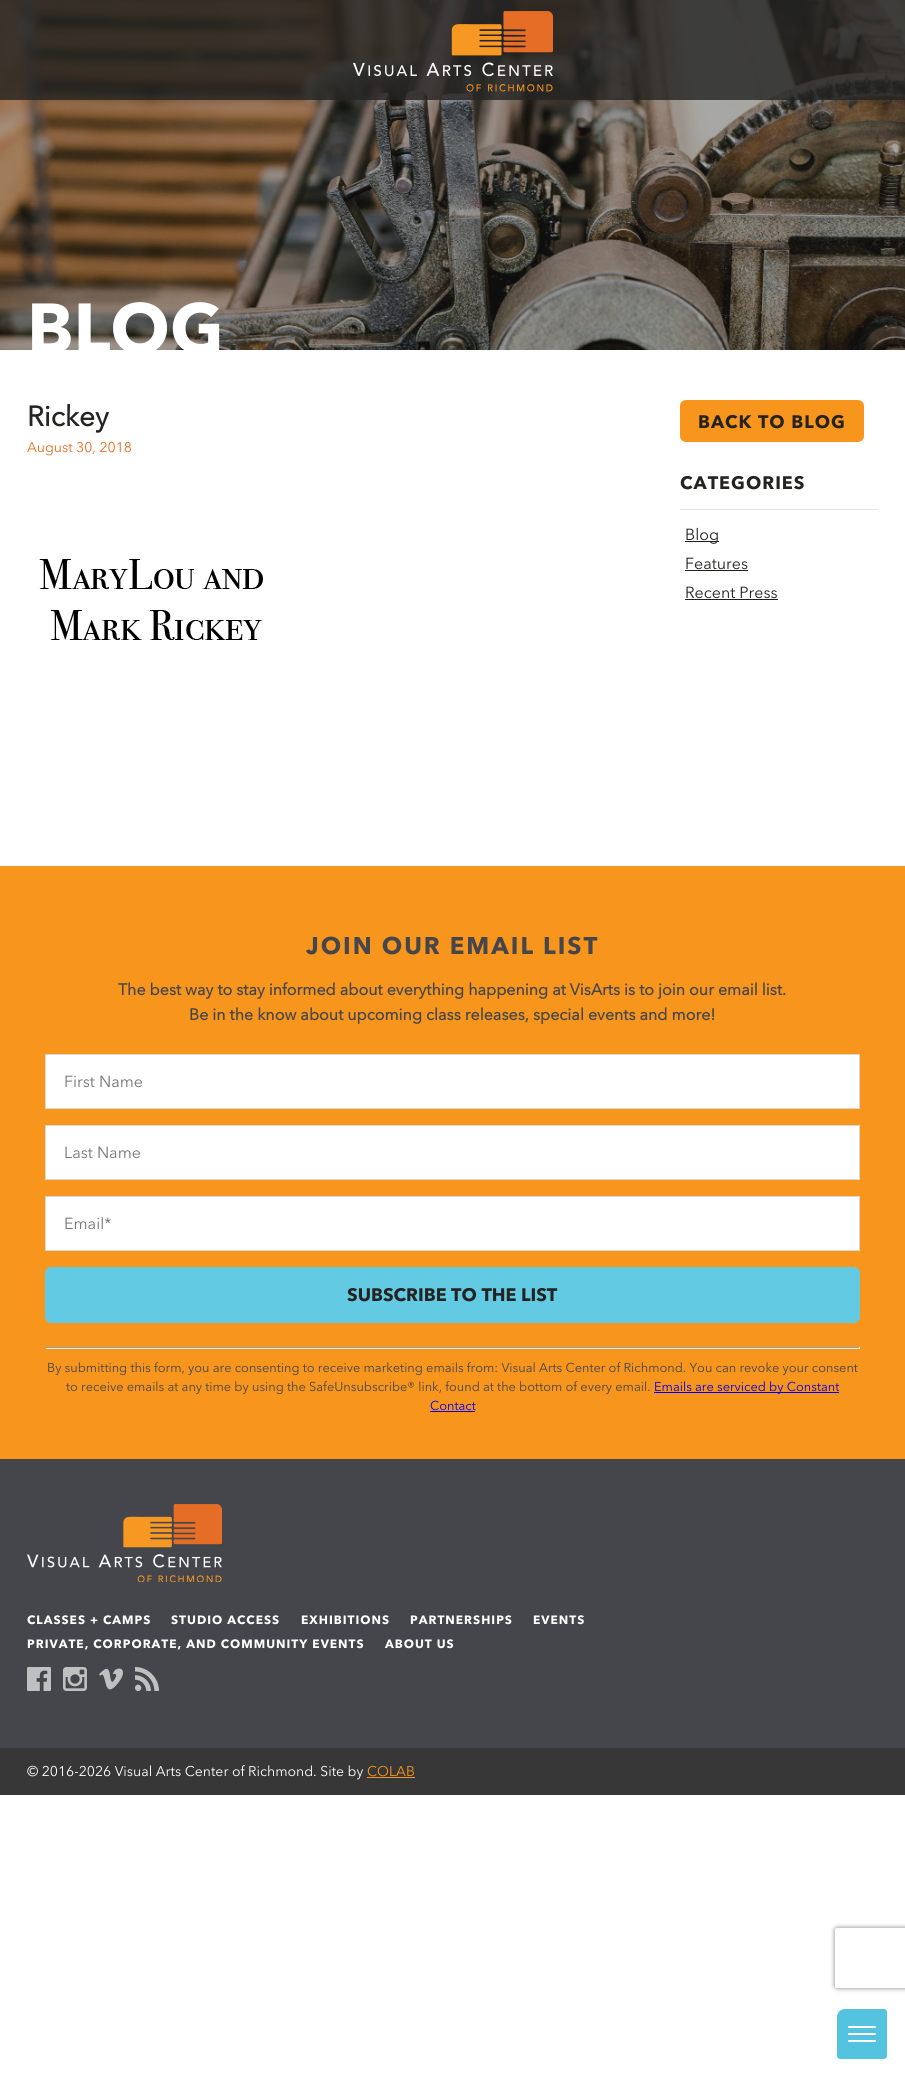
#include <cairo.h>
#include <math.h>
#include <stddef.h>


static void spaced_text(cairo_t *cr, double x, double y, const char *s, double letter, double word) {
    cairo_move_to(cr, x, y);
    while (*s) {
        char ch[5] = {0};
        int n = 0;
        do ch[n++] = *s++; while ((*s & 0xC0) == 0x80);
        cairo_show_text(cr, ch);
        cairo_rel_move_to(cr, letter + word * (*ch == ' '), 0);
    }
}

static void round_rect(cairo_t *cr, double x, double y, double w, double h, double r) {
    cairo_new_sub_path(cr);
    cairo_arc(cr, x + w - r, y + h - r, r, 0, M_PI / 2);
    cairo_arc(cr, x + r, y + h - r, r, M_PI / 2, M_PI);
    cairo_arc(cr, x + r, y + r, r, M_PI, 1.5 * M_PI);
    cairo_arc(cr, x + w - r, y + r, r, 1.5 * M_PI, 2 * M_PI);
    cairo_close_path(cr);
}

static void shadow(cairo_t *cr, double x, double y, double w, double h, double r, double blur, double alpha) {
    cairo_push_group_with_content(cr, CAIRO_CONTENT_ALPHA);
    cairo_set_operator(cr, CAIRO_OPERATOR_SOURCE);
    for (int i = 15; i >= -15 && fmin(w, h) + blur * i / 3 > 0; i -= 2) {
        double e = blur * i / 6;
        cairo_set_source_rgba(cr, 0, 0, 0, alpha * erfc((i - 1) / 8.5) / 2);
        round_rect(cr, x - e, y - e, w + 2 * e, h + 2 * e, fmax(0, fmin(r + e + blur * .6, fmin(w, h) / 2 + e)));
        cairo_fill(cr);
    }
    cairo_pattern_t *soft = cairo_pop_group(cr);
    cairo_mask(cr, soft);
    cairo_pattern_destroy(soft);
}

static void picture(cairo_t *cr, const char *path, double x, double y, double w, double h) {
    cairo_surface_t *image = cairo_image_surface_create_from_png(path);
    cairo_save(cr);
    cairo_set_source_surface(cr, image, x, y);
    cairo_rectangle(cr, x, y, w, h);
    cairo_fill(cr);
    cairo_restore(cr);
    cairo_surface_destroy(image);
}

int main(void) {
    cairo_surface_t *surface = cairo_image_surface_create(CAIRO_FORMAT_RGB24, 905, 2077);
    cairo_t *cr = cairo_create(surface);
    cairo_font_options_t *options = cairo_font_options_create();
    cairo_font_options_set_hint_metrics(options, CAIRO_HINT_METRICS_OFF);
    cairo_font_options_set_hint_style(options, CAIRO_HINT_STYLE_NONE);
    cairo_set_font_options(cr, options);
    cairo_set_miter_limit(cr, 4);
    cairo_set_source_rgb(cr, 1, 1, 1);
    cairo_paint(cr);
    picture(cr, "img2.png", 0, 0, 905, 350);
    cairo_set_source_rgba(cr, 0.141, 0.137, 0.133, 0.8);
    cairo_rectangle(cr, 0, 0, 905, 100);
    cairo_fill(cr);
    picture(cr, "img1.png", 353, 11, 200, 81);
    cairo_set_source_rgb(cr, 0.329, 0.765, 0.875);
    cairo_new_path(cr);
    cairo_move_to(cr, 845, 2009);
    cairo_line_to(cr, 884, 2009);
    cairo_curve_to(cr, 885.5, 2009, 887, 2010.5, 887, 2012);
    cairo_line_to(cr, 887, 2056);
    cairo_curve_to(cr, 887, 2057.5, 885.5, 2059, 884, 2059);
    cairo_line_to(cr, 840, 2059);
    cairo_curve_to(cr, 838.5, 2059, 837, 2057.5, 837, 2056);
    cairo_line_to(cr, 837, 2017);
    cairo_curve_to(cr, 837, 2012.5, 840.5, 2009, 845, 2009);
    cairo_close_path(cr);
    cairo_fill(cr);
    cairo_set_source_rgb(cr, 1, 1, 1);
    round_rect(cr, 848, 2026, 28, 2, 1);
    cairo_fill(cr);
    round_rect(cr, 848, 2033, 28, 2, 1);
    cairo_fill(cr);
    round_rect(cr, 848, 2040, 28, 2, 1);
    cairo_fill(cr);
    cairo_select_font_face(cr, "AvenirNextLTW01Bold", CAIRO_FONT_SLANT_NORMAL, CAIRO_FONT_WEIGHT_BOLD);
    cairo_set_font_size(cr, 70);
    cairo_move_to(cr, 27, 353);
    cairo_show_text(cr, "BLOG");
    cairo_select_font_face(cr, "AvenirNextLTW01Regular", CAIRO_FONT_SLANT_NORMAL, CAIRO_FONT_WEIGHT_BOLD);
    cairo_set_font_size(cr, 28);
    cairo_set_source_rgb(cr, 0.141, 0.137, 0.133);
    cairo_move_to(cr, 27, 426);
    cairo_show_text(cr, "Rickey");
    cairo_select_font_face(cr, "AvenirNextLTW01Regular", CAIRO_FONT_SLANT_NORMAL, CAIRO_FONT_WEIGHT_NORMAL);
    cairo_set_font_size(cr, 14);
    cairo_set_source_rgb(cr, 0.91, 0.427, 0.122);
    cairo_move_to(cr, 27, 452);
    cairo_show_text(cr, "August 30, 2018");
    picture(cr, "img3.png", 39, 559, 224, 81);
    cairo_set_source_rgb(cr, 0.969, 0.584, 0.114);
    round_rect(cr, 681, 401, 182, 40, 5);
    cairo_fill_preserve(cr);
    cairo_stroke(cr);
    cairo_select_font_face(cr, "AvenirNextLTW01Bold", CAIRO_FONT_SLANT_NORMAL, CAIRO_FONT_WEIGHT_BOLD);
    cairo_set_font_size(cr, 18);
    cairo_set_source_rgb(cr, 0.141, 0.137, 0.133);
    spaced_text(cr, 698, 428, "BACK TO BLOG", 1, 0);
    cairo_set_source_rgb(cr, 0.898, 0.898, 0.898);
    cairo_rectangle(cr, 680, 509, 198, 1);
    cairo_fill(cr);
    cairo_set_source_rgb(cr, 0.141, 0.137, 0.133);
    spaced_text(cr, 680, 489, "CATEGORIES", 1, 0);
    cairo_set_source_rgb(cr, 0.122, 0.122, 0.122);
    cairo_rectangle(cr, 685, 541, 34, 1);
    cairo_fill(cr);
    cairo_select_font_face(cr, "AvenirNextLTW01Regular", CAIRO_FONT_SLANT_NORMAL, CAIRO_FONT_WEIGHT_NORMAL);
    cairo_set_font_size(cr, 16);
    cairo_set_source_rgb(cr, 0.141, 0.137, 0.133);
    cairo_move_to(cr, 685, 540);
    cairo_show_text(cr, "Blog");
    cairo_move_to(cr, 685, 569);
    cairo_show_text(cr, "Features");
    cairo_set_source_rgb(cr, 0.122, 0.122, 0.122);
    cairo_rectangle(cr, 685, 570, 63, 1);
    cairo_fill(cr);
    cairo_set_source_rgb(cr, 0.141, 0.137, 0.133);
    cairo_move_to(cr, 685, 598);
    cairo_show_text(cr, "Recent Press");
    cairo_set_source_rgb(cr, 0.122, 0.122, 0.122);
    cairo_rectangle(cr, 685, 599, 93, 1);
    cairo_fill(cr);
    cairo_set_source_rgb(cr, 0.969, 0.584, 0.114);
    cairo_rectangle(cr, 0, 866, 905, 593);
    cairo_fill(cr);
    cairo_select_font_face(cr, "AvenirNextLTW01Bold", CAIRO_FONT_SLANT_NORMAL, CAIRO_FONT_WEIGHT_BOLD);
    cairo_set_font_size(cr, 24);
    cairo_set_source_rgb(cr, 0.267, 0.275, 0.298);
    spaced_text(cr, 306, 954, "JOIN OUR EMAIL LIST", 2, 0);
    cairo_select_font_face(cr, "AvenirNextLTW01Regular", CAIRO_FONT_SLANT_NORMAL, CAIRO_FONT_WEIGHT_BOLD);
    cairo_set_font_size(cr, 16);
    cairo_move_to(cr, 118, 995);
    cairo_show_text(cr, "The best way to stay informed about everything happening at VisArts is to join our email list.");
    cairo_move_to(cr, 189, 1020);
    cairo_show_text(cr, "Be in the know about upcoming class releases, special events and more!");
    cairo_set_source_rgb(cr, 1, 1, 1);
    cairo_rectangle(cr, 45.5, 1054.5, 814, 54);
    cairo_fill_preserve(cr);
    cairo_set_source_rgb(cr, 0.847, 0.847, 0.847);
    cairo_set_line_width(cr, 1);
    cairo_stroke(cr);
    cairo_select_font_face(cr, "AvenirNextLTW01Regular", CAIRO_FONT_SLANT_NORMAL, CAIRO_FONT_WEIGHT_NORMAL);
    cairo_set_source_rgb(cr, 0.459, 0.459, 0.459);
    cairo_move_to(cr, 64, 1087);
    cairo_show_text(cr, "First Name");
    cairo_set_source_rgb(cr, 1, 1, 1);
    cairo_rectangle(cr, 45.5, 1125.5, 814, 54);
    cairo_fill_preserve(cr);
    cairo_set_source_rgb(cr, 0.847, 0.847, 0.847);
    cairo_stroke(cr);
    cairo_set_source_rgb(cr, 0.459, 0.459, 0.459);
    cairo_move_to(cr, 64, 1158);
    cairo_show_text(cr, "Last Name");
    cairo_set_source_rgb(cr, 1, 1, 1);
    cairo_rectangle(cr, 45.5, 1196.5, 814, 54);
    cairo_fill_preserve(cr);
    cairo_set_source_rgb(cr, 0.847, 0.847, 0.847);
    cairo_stroke(cr);
    cairo_set_source_rgb(cr, 0.459, 0.459, 0.459);
    cairo_move_to(cr, 64, 1229);
    cairo_show_text(cr, "Email*");
    cairo_set_source_rgb(cr, 0.384, 0.792, 0.886);
    round_rect(cr, 45, 1267, 815, 56, 6);
    cairo_fill(cr);
    cairo_select_font_face(cr, "AvenirNextLTW01Bold", CAIRO_FONT_SLANT_NORMAL, CAIRO_FONT_WEIGHT_BOLD);
    cairo_set_font_size(cr, 18);
    cairo_set_source_rgb(cr, 0.141, 0.137, 0.133);
    cairo_move_to(cr, 347, 1301);
    cairo_show_text(cr, "SUBSCRIBE TO THE LIST");
    cairo_set_source_rgb(cr, 0.624, 0.624, 0.624);
    cairo_rectangle(cr, 45, 1347, 815, 1);
    cairo_fill(cr);
    cairo_set_source_rgb(cr, 0.933, 0.933, 0.933);
    cairo_rectangle(cr, 859, 1347, 1, 2);
    cairo_fill(cr);
    cairo_rectangle(cr, 45, 1348, 815, 1);
    cairo_fill(cr);
    cairo_set_source_rgb(cr, 0.624, 0.624, 0.624);
    cairo_rectangle(cr, 45, 1347, 1, 2);
    cairo_fill(cr);
    cairo_select_font_face(cr, "AvenirNextLTW01Regular", CAIRO_FONT_SLANT_NORMAL, CAIRO_FONT_WEIGHT_NORMAL);
    cairo_set_font_size(cr, 12.8);
    cairo_set_source_rgb(cr, 0.267, 0.275, 0.298);
    cairo_move_to(cr, 47, 1372);
    cairo_show_text(cr, "By submitting this form, you are consenting to receive marketing emails from: Visual Arts Center of Richmond. You can revoke your consent");
    cairo_move_to(cr, 66, 1391);
    cairo_show_text(cr, "to receive emails at any time by using the SafeUnsubscribe® link, found at the bottom of every email.");
    cairo_set_source_rgb(cr, 0, 0, 0.933);
    cairo_rectangle(cr, 654, 1392, 185, 1);
    cairo_fill(cr);
    cairo_move_to(cr, 654, 1391);
    cairo_show_text(cr, "Emails are serviced by Constant");
    cairo_move_to(cr, 430, 1410);
    cairo_show_text(cr, "Contact");
    cairo_rectangle(cr, 430, 1411, 45, 1);
    cairo_fill(cr);
    cairo_set_source_rgb(cr, 0.267, 0.275, 0.298);
    cairo_rectangle(cr, 0, 1459, 905, 289);
    cairo_fill(cr);
    picture(cr, "img4.png", 27, 1504, 195, 78);
    cairo_select_font_face(cr, "AvenirNextLTW01Bold", CAIRO_FONT_SLANT_NORMAL, CAIRO_FONT_WEIGHT_BOLD);
    cairo_set_font_size(cr, 12);
    cairo_set_source_rgb(cr, 1, 1, 1);
    spaced_text(cr, 27, 1624, "CLASSES + CAMPS", 1, 0);
    spaced_text(cr, 171, 1624, "STUDIO ACCESS", 1, 0);
    spaced_text(cr, 301, 1624, "EXHIBITIONS", 1, 0);
    spaced_text(cr, 410, 1624, "PARTNERSHIPS", 1, 0);
    spaced_text(cr, 533, 1624, "EVENTS", 1, 0);
    spaced_text(cr, 27, 1648, "PRIVATE, CORPORATE, AND COMMUNITY EVENTS", 1, 0);
    spaced_text(cr, 385, 1648, "ABOUT US", 1, 0);
    picture(cr, "img5.png", 27, 1667, 24, 24);
    picture(cr, "img6.png", 63, 1667, 24, 24);
    picture(cr, "img7.png", 99, 1668, 24, 22);
    picture(cr, "img8.png", 135, 1667, 24, 24);
    cairo_set_source_rgb(cr, 0.216, 0.216, 0.216);
    cairo_rectangle(cr, 0, 1748, 905, 47);
    cairo_fill(cr);
    cairo_select_font_face(cr, "AvenirNextLTW01Regular", CAIRO_FONT_SLANT_NORMAL, CAIRO_FONT_WEIGHT_NORMAL);
    cairo_set_font_size(cr, 14);
    cairo_set_source_rgb(cr, 1, 1, 1);
    cairo_move_to(cr, 27, 1776);
    cairo_show_text(cr, "© 2016-2026 Visual Arts Center of Richmond. Site by");
    cairo_set_source_rgb(cr, 0.969, 0.584, 0.114);
    cairo_move_to(cr, 367, 1776);
    cairo_show_text(cr, "COLAB");
    cairo_rectangle(cr, 367, 1777, 48, 1);
    cairo_fill(cr);
    cairo_save(cr);
    cairo_set_fill_rule(cr, CAIRO_FILL_RULE_EVEN_ODD);
    cairo_new_path(cr);
    cairo_move_to(cr, 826, 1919);
    cairo_line_to(cr, 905, 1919);
    cairo_line_to(cr, 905, 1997);
    cairo_line_to(cr, 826, 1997);
    cairo_close_path(cr);
    cairo_move_to(cr, 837, 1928);
    cairo_line_to(cr, 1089, 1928);
    cairo_curve_to(cr, 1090, 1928, 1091, 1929, 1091, 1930);
    cairo_line_to(cr, 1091, 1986);
    cairo_curve_to(cr, 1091, 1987, 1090, 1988, 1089, 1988);
    cairo_line_to(cr, 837, 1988);
    cairo_curve_to(cr, 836, 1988, 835, 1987, 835, 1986);
    cairo_line_to(cr, 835, 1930);
    cairo_curve_to(cr, 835, 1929, 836, 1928, 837, 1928);
    cairo_close_path(cr);
    cairo_clip(cr);
    cairo_set_source_rgb(cr, 0.502, 0.502, 0.502);
    shadow(cr, 835, 1928, 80, 60, 2, 2.5, 1);
    cairo_restore(cr);
    cairo_surface_write_to_png(surface, "page.png");
    cairo_font_options_destroy(options);
    cairo_destroy(cr);
    cairo_surface_destroy(surface);
    return 0;
}
